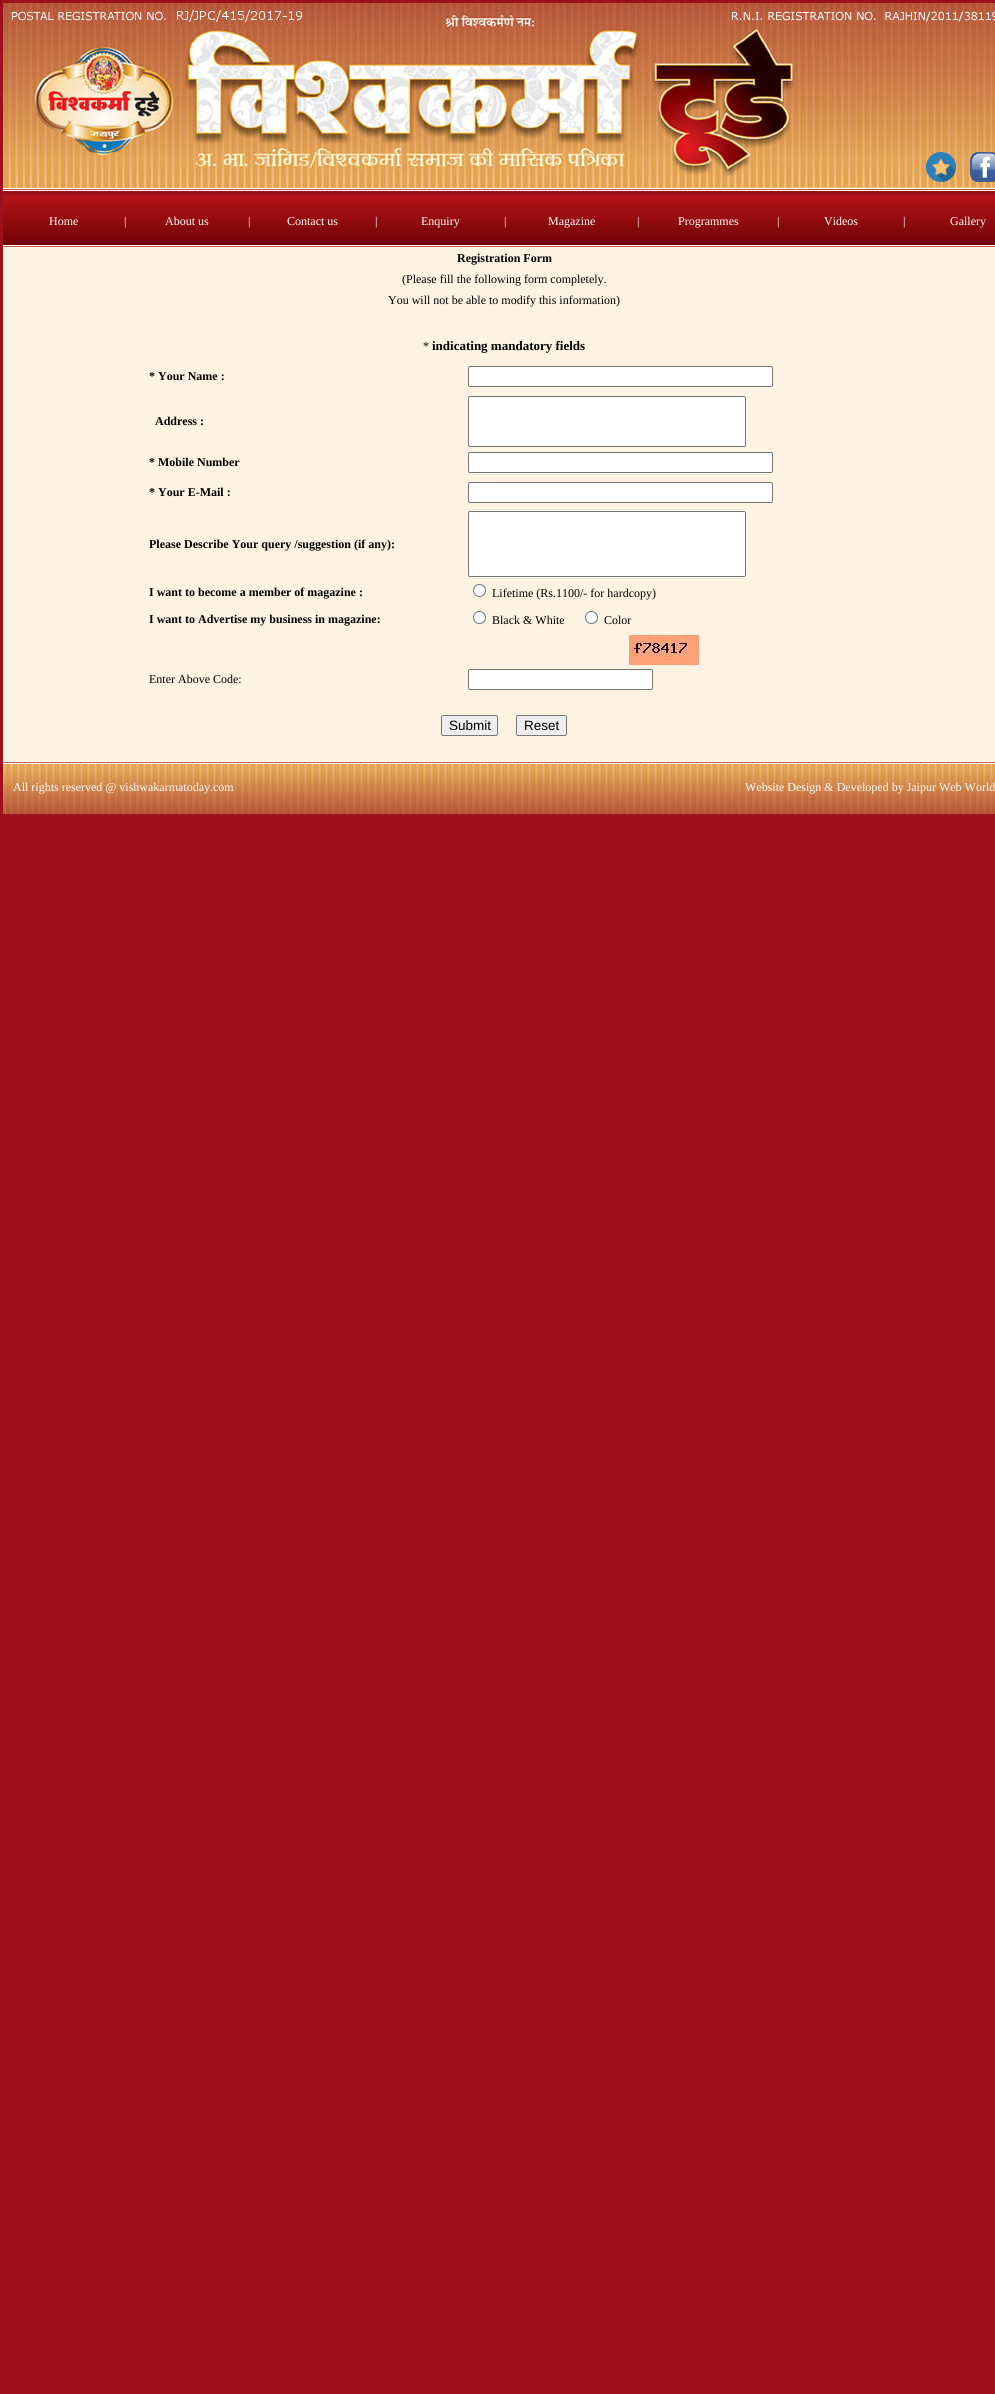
#include <cairo.h>
#include <math.h>
#include <stddef.h>


static void round_rect(cairo_t *cr, double x, double y, double w, double h, double r) {
    cairo_new_sub_path(cr);
    cairo_arc(cr, x + w - r, y + h - r, r, 0, M_PI / 2);
    cairo_arc(cr, x + r, y + h - r, r, M_PI / 2, M_PI);
    cairo_arc(cr, x + r, y + r, r, M_PI, 1.5 * M_PI);
    cairo_arc(cr, x + w - r, y + r, r, 1.5 * M_PI, 2 * M_PI);
    cairo_close_path(cr);
}

static void picture(cairo_t *cr, const char *path, double x, double y, double w, double h) {
    cairo_surface_t *image = cairo_image_surface_create_from_png(path);
    cairo_save(cr);
    cairo_set_source_surface(cr, image, x, y);
    cairo_rectangle(cr, x, y, w, h);
    cairo_fill(cr);
    cairo_restore(cr);
    cairo_surface_destroy(image);
}

int main(void) {
    cairo_surface_t *surface = cairo_image_surface_create(CAIRO_FORMAT_RGB24, 995, 2394);
    cairo_t *cr = cairo_create(surface);
    cairo_font_options_t *options = cairo_font_options_create();
    cairo_font_options_set_hint_metrics(options, CAIRO_HINT_METRICS_OFF);
    cairo_font_options_set_hint_style(options, CAIRO_HINT_STYLE_NONE);
    cairo_set_font_options(cr, options);
    cairo_set_miter_limit(cr, 4);
    cairo_set_source_rgb(cr, 0.616, 0.059, 0.114);
    cairo_paint(cr);
    picture(cr, "img1.png", 3, 3, 992, 188);
    picture(cr, "img2.png", 926, 152, 30, 30);
    picture(cr, "img3.png", 970, 152, 25, 30);
    picture(cr, "img4.png", 3, 195, 992, 53);
    cairo_select_font_face(cr, "Liberation Serif", CAIRO_FONT_SLANT_NORMAL, CAIRO_FONT_WEIGHT_NORMAL);
    cairo_set_font_size(cr, 12);
    cairo_set_source_rgb(cr, 1, 1, 1);
    cairo_move_to(cr, 49, 225);
    cairo_show_text(cr, "Home");
    cairo_move_to(cr, 124, 225);
    cairo_show_text(cr, "|");
    cairo_move_to(cr, 165, 225);
    cairo_show_text(cr, "About us");
    cairo_move_to(cr, 248, 225);
    cairo_show_text(cr, "|");
    cairo_move_to(cr, 287, 225);
    cairo_show_text(cr, "Contact us");
    cairo_move_to(cr, 375, 225);
    cairo_show_text(cr, "|");
    cairo_move_to(cr, 421, 225);
    cairo_show_text(cr, "Enquiry");
    cairo_move_to(cr, 504, 225);
    cairo_show_text(cr, "|");
    cairo_move_to(cr, 548, 225);
    cairo_show_text(cr, "Magazine");
    cairo_move_to(cr, 637, 225);
    cairo_show_text(cr, "|");
    cairo_move_to(cr, 678, 225);
    cairo_show_text(cr, "Programmes");
    cairo_move_to(cr, 777, 225);
    cairo_show_text(cr, "|");
    cairo_move_to(cr, 824, 225);
    cairo_show_text(cr, "Videos");
    cairo_move_to(cr, 903, 225);
    cairo_show_text(cr, "|");
    cairo_move_to(cr, 950, 225);
    cairo_show_text(cr, "Gallery");
    cairo_set_source_rgb(cr, 0.996, 0.949, 0.886);
    cairo_rectangle(cr, 3, 248, 992, 513);
    cairo_fill(cr);
    cairo_select_font_face(cr, "Liberation Serif", CAIRO_FONT_SLANT_NORMAL, CAIRO_FONT_WEIGHT_BOLD);
    cairo_set_source_rgb(cr, 0, 0, 0);
    cairo_move_to(cr, 457, 262);
    cairo_show_text(cr, "Registration Form");
    cairo_select_font_face(cr, "Liberation Serif", CAIRO_FONT_SLANT_NORMAL, CAIRO_FONT_WEIGHT_NORMAL);
    cairo_move_to(cr, 402, 283);
    cairo_show_text(cr, "(Please fill the following form completely.");
    cairo_move_to(cr, 388, 304);
    cairo_show_text(cr, "You will not be able to modify this information)");
    cairo_move_to(cr, 423, 350);
    cairo_show_text(cr, "*");
    cairo_select_font_face(cr, "Liberation Serif", CAIRO_FONT_SLANT_NORMAL, CAIRO_FONT_WEIGHT_BOLD);
    cairo_set_font_size(cr, 13);
    cairo_move_to(cr, 432, 350);
    cairo_show_text(cr, "indicating mandatory fields");
    cairo_set_font_size(cr, 12);
    cairo_move_to(cr, 149, 380);
    cairo_show_text(cr, "* Your Name :");
    cairo_set_source_rgb(cr, 1, 1, 1);
    round_rect(cr, 468.5, 366.5, 304, 20, 1.5);
    cairo_fill_preserve(cr);
    cairo_set_source_rgb(cr, 0.463, 0.463, 0.463);
    cairo_set_line_width(cr, 1);
    cairo_stroke(cr);
    cairo_set_source_rgb(cr, 0, 0, 0);
    cairo_move_to(cr, 155, 425);
    cairo_show_text(cr, "Address :");
    cairo_set_source_rgb(cr, 1, 1, 1);
    round_rect(cr, 468.5, 396.5, 277, 50, 1.5);
    cairo_fill_preserve(cr);
    cairo_set_source_rgb(cr, 0.463, 0.463, 0.463);
    cairo_stroke(cr);
    cairo_set_source_rgb(cr, 0, 0, 0);
    cairo_move_to(cr, 149, 466);
    cairo_show_text(cr, "* Mobile Number");
    cairo_set_source_rgb(cr, 1, 1, 1);
    round_rect(cr, 468.5, 452.5, 304, 20, 1.5);
    cairo_fill_preserve(cr);
    cairo_set_source_rgb(cr, 0.463, 0.463, 0.463);
    cairo_stroke(cr);
    cairo_set_source_rgb(cr, 0, 0, 0);
    cairo_move_to(cr, 149, 496);
    cairo_show_text(cr, "* Your E-Mail :");
    cairo_set_source_rgb(cr, 1, 1, 1);
    round_rect(cr, 468.5, 482.5, 304, 20, 1.5);
    cairo_fill_preserve(cr);
    cairo_set_source_rgb(cr, 0.463, 0.463, 0.463);
    cairo_stroke(cr);
    cairo_set_source_rgb(cr, 0, 0, 0);
    cairo_move_to(cr, 149, 548);
    cairo_show_text(cr, "Please Describe Your query /suggestion (if any):");
    cairo_set_source_rgb(cr, 1, 1, 1);
    round_rect(cr, 468.5, 511.5, 277, 65, 1.5);
    cairo_fill_preserve(cr);
    cairo_set_source_rgb(cr, 0.463, 0.463, 0.463);
    cairo_stroke(cr);
    cairo_set_source_rgb(cr, 0, 0, 0);
    cairo_move_to(cr, 149, 596);
    cairo_show_text(cr, "I want to become a member of magazine :");
    cairo_set_source_rgb(cr, 1, 1, 1);
    cairo_new_path(cr);
    cairo_arc(cr, 479.5, 590.5, 6, 0, 2 * M_PI);
    cairo_fill_preserve(cr);
    cairo_set_source_rgb(cr, 0.463, 0.463, 0.463);
    cairo_stroke(cr);
    cairo_select_font_face(cr, "Liberation Serif", CAIRO_FONT_SLANT_NORMAL, CAIRO_FONT_WEIGHT_NORMAL);
    cairo_set_source_rgb(cr, 0, 0, 0);
    cairo_move_to(cr, 492, 597);
    cairo_show_text(cr, "Lifetime (Rs.1100/- for hardcopy)");
    cairo_select_font_face(cr, "Liberation Serif", CAIRO_FONT_SLANT_NORMAL, CAIRO_FONT_WEIGHT_BOLD);
    cairo_move_to(cr, 149, 623);
    cairo_show_text(cr, "I want to Advertise my business in magazine:");
    cairo_set_source_rgb(cr, 1, 1, 1);
    cairo_new_path(cr);
    cairo_arc(cr, 479.5, 617.5, 6, 0, 2 * M_PI);
    cairo_fill_preserve(cr);
    cairo_set_source_rgb(cr, 0.463, 0.463, 0.463);
    cairo_stroke(cr);
    cairo_select_font_face(cr, "Liberation Serif", CAIRO_FONT_SLANT_NORMAL, CAIRO_FONT_WEIGHT_NORMAL);
    cairo_set_source_rgb(cr, 0, 0, 0);
    cairo_move_to(cr, 492, 624);
    cairo_show_text(cr, "Black & White");
    cairo_set_source_rgb(cr, 1, 1, 1);
    cairo_new_path(cr);
    cairo_arc(cr, 591.5, 617.5, 6, 0, 2 * M_PI);
    cairo_fill_preserve(cr);
    cairo_set_source_rgb(cr, 0.463, 0.463, 0.463);
    cairo_stroke(cr);
    cairo_set_source_rgb(cr, 0, 0, 0);
    cairo_move_to(cr, 604, 624);
    cairo_show_text(cr, "Color");
    picture(cr, "img5.png", 629, 635, 70, 30);
    cairo_move_to(cr, 149, 683);
    cairo_show_text(cr, "Enter Above Code:");
    cairo_set_source_rgb(cr, 1, 1, 1);
    round_rect(cr, 468.5, 669.5, 184, 20, 1.5);
    cairo_fill_preserve(cr);
    cairo_set_source_rgb(cr, 0.463, 0.463, 0.463);
    cairo_stroke(cr);
    cairo_set_source_rgb(cr, 0.937, 0.937, 0.937);
    round_rect(cr, 441.5, 715.5, 56, 20, 1.5);
    cairo_fill_preserve(cr);
    cairo_set_source_rgb(cr, 0.463, 0.463, 0.463);
    cairo_stroke(cr);
    cairo_select_font_face(cr, "Liberation Sans", CAIRO_FONT_SLANT_NORMAL, CAIRO_FONT_WEIGHT_NORMAL);
    cairo_set_font_size(cr, 13.5);
    cairo_set_source_rgb(cr, 0, 0, 0);
    cairo_move_to(cr, 449, 730);
    cairo_show_text(cr, "Submit");
    cairo_set_source_rgb(cr, 0.937, 0.937, 0.937);
    round_rect(cr, 516.5, 715.5, 50, 20, 1.5);
    cairo_fill_preserve(cr);
    cairo_set_source_rgb(cr, 0.463, 0.463, 0.463);
    cairo_stroke(cr);
    cairo_set_source_rgb(cr, 0, 0, 0);
    cairo_move_to(cr, 524, 730);
    cairo_show_text(cr, "Reset");
    picture(cr, "img6.png", 3, 761, 992, 53);
    cairo_select_font_face(cr, "Liberation Serif", CAIRO_FONT_SLANT_NORMAL, CAIRO_FONT_WEIGHT_NORMAL);
    cairo_set_font_size(cr, 12);
    cairo_set_source_rgb(cr, 1, 1, 1);
    cairo_move_to(cr, 13, 791);
    cairo_show_text(cr, "All rights reserved @ vishwakarmatoday.com");
    cairo_move_to(cr, 745, 791);
    cairo_show_text(cr, "Website Design & Developed by Jaipur Web World");
    cairo_surface_write_to_png(surface, "page.png");
    cairo_font_options_destroy(options);
    cairo_destroy(cr);
    cairo_surface_destroy(surface);
    return 0;
}
